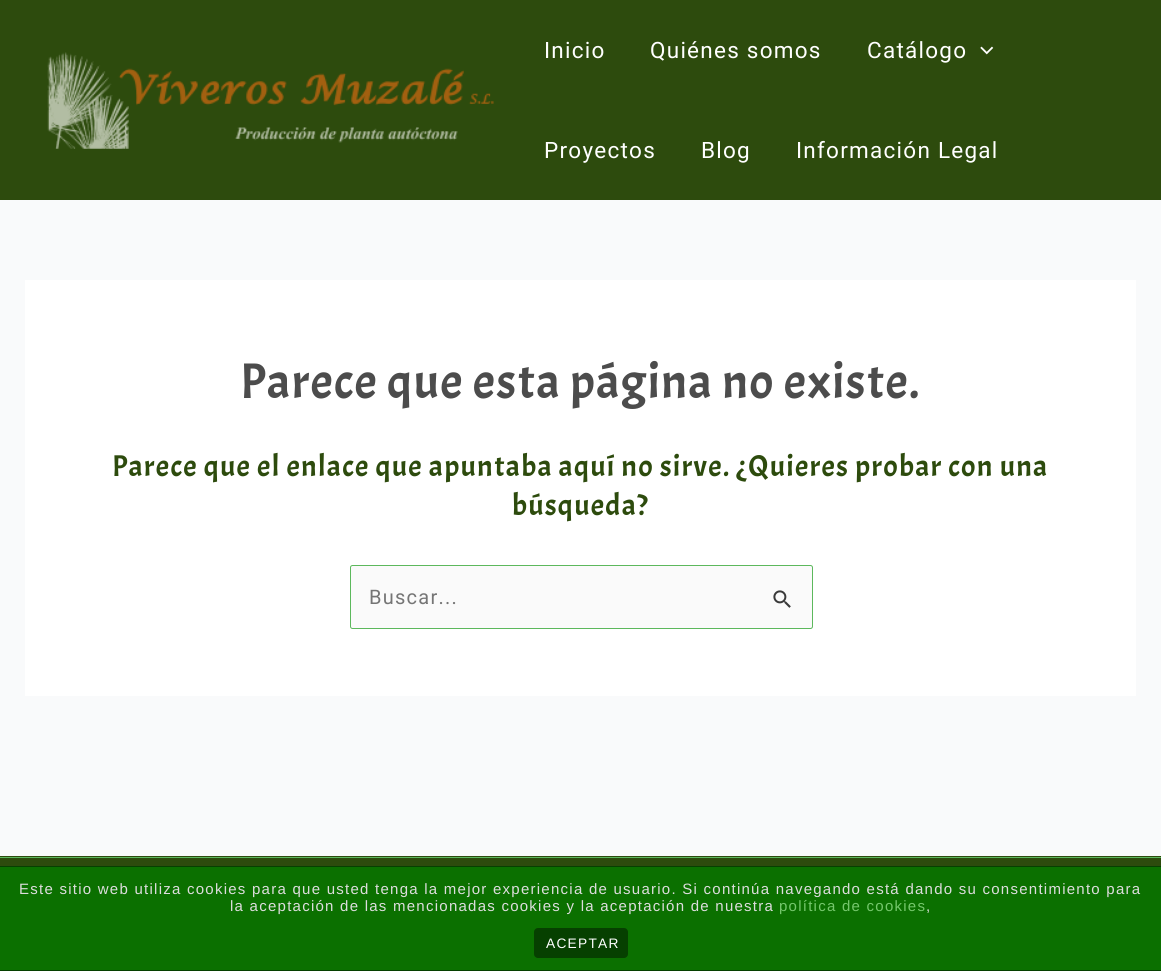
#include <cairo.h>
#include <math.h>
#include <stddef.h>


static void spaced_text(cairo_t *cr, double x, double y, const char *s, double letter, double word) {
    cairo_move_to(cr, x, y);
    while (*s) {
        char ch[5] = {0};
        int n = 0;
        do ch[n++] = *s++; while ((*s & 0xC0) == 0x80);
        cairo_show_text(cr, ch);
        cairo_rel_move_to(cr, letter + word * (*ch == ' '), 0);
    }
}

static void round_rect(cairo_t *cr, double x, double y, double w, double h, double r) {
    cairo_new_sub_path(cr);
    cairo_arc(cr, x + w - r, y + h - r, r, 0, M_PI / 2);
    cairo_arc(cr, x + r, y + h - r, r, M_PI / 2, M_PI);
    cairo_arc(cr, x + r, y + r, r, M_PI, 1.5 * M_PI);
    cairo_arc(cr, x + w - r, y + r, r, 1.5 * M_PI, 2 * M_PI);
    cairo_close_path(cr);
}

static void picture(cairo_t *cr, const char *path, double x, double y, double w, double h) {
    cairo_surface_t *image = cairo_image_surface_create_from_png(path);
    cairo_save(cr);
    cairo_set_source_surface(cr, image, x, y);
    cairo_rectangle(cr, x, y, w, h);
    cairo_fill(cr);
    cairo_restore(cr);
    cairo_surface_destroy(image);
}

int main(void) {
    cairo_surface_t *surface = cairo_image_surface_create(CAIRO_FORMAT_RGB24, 1161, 971);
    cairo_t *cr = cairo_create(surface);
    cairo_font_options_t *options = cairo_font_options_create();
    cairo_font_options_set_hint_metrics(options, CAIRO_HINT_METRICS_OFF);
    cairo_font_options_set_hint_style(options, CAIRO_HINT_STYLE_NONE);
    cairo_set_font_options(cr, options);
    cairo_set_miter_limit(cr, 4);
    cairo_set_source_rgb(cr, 0.976, 0.98, 0.984);
    cairo_paint(cr);
    cairo_set_source_rgb(cr, 0.176, 0.294, 0.051);
    cairo_rectangle(cr, 0, 0, 1161, 200);
    cairo_fill(cr);
    picture(cr, "img1.png", 47, 52, 447, 97);
    cairo_select_font_face(cr, "Roboto", CAIRO_FONT_SLANT_NORMAL, CAIRO_FONT_WEIGHT_NORMAL);
    cairo_set_font_size(cr, 22.5);
    cairo_set_source_rgb(cr, 1, 1, 1);
    spaced_text(cr, 544, 58, "Inicio", 1.25, 0);
    spaced_text(cr, 650, 58, "Quiénes somos", 1.25, 0);
    spaced_text(cr, 867, 58, "Catálogo", 1.25, 0);
    picture(cr, "img2.png", 980, 46, 14, 9);
    spaced_text(cr, 544, 158, "Proyectos", 1.25, 0);
    spaced_text(cr, 701, 158, "Blog", 1.25, 0);
    spaced_text(cr, 796, 158, "Información Legal", 1.25, 0);
    cairo_rectangle(cr, 25, 280, 1111, 416);
    cairo_fill(cr);
    cairo_select_font_face(cr, "Acme", CAIRO_FONT_SLANT_NORMAL, CAIRO_FONT_WEIGHT_NORMAL);
    cairo_set_font_size(cr, 50);
    cairo_set_source_rgb(cr, 0.298, 0.298, 0.298);
    spaced_text(cr, 240, 398, "Parece que esta página no existe.", 1.25, 0);
    cairo_set_font_size(cr, 30);
    cairo_set_source_rgb(cr, 0.176, 0.294, 0.051);
    spaced_text(cr, 112, 476, "Parece que el enlace que apuntaba aquí no sirve. ¿Quieres probar con una", 1.25, 0);
    spaced_text(cr, 512, 515, "búsqueda?", 1.25, 0);
    cairo_set_source_rgb(cr, 0.98, 0.98, 0.98);
    round_rect(cr, 350.5, 565.5, 462, 63, 2);
    cairo_fill_preserve(cr);
    cairo_set_source_rgb(cr, 0.361, 0.722, 0.361);
    cairo_set_line_width(cr, 1);
    cairo_stroke(cr);
    cairo_select_font_face(cr, "Roboto", CAIRO_FONT_SLANT_NORMAL, CAIRO_FONT_WEIGHT_NORMAL);
    cairo_set_font_size(cr, 20);
    cairo_set_source_rgb(cr, 0.459, 0.459, 0.459);
    spaced_text(cr, 369, 604, "Buscar...", 1.25, 0);
    picture(cr, "img3.png", 773, 590, 18, 18);
    cairo_set_source_rgb(cr, 0.361, 0.722, 0.361);
    cairo_rectangle(cr, 0, 857, 1161, 1);
    cairo_fill(cr);
    cairo_set_source_rgb(cr, 0.176, 0.294, 0.051);
    cairo_rectangle(cr, 0, 858, 1161, 8);
    cairo_fill(cr);
    cairo_rectangle(cr, 0, 856, 1161, 1);
    cairo_fill(cr);
    cairo_set_source_rgb(cr, 0.043, 0.439, 0);
    cairo_rectangle(cr, 0, 867, 1161, 103);
    cairo_fill(cr);
    cairo_set_source_rgb(cr, 0.024, 0.251, 0);
    cairo_rectangle(cr, 0, 866, 1161, 1);
    cairo_fill(cr);
    cairo_rectangle(cr, 0, 970, 1161, 1);
    cairo_fill(cr);
    cairo_select_font_face(cr, "Liberation Sans", CAIRO_FONT_SLANT_NORMAL, CAIRO_FONT_WEIGHT_NORMAL);
    cairo_set_font_size(cr, 15);
    cairo_set_source_rgb(cr, 0.867, 0.867, 0.867);
    spaced_text(cr, 19, 894, "Este sitio web utiliza cookies para que usted tenga la mejor experiencia de usuario. Si continúa navegando está dando su consentimiento para", 1.25, 0);
    spaced_text(cr, 230, 911, "la aceptación de las mencionadas cookies y la aceptación de nuestra", 1.25, 0);
    cairo_set_source_rgb(cr, 0.459, 0.78, 0.424);
    spaced_text(cr, 779, 911, "política de cookies", 1.25, 0);
    cairo_set_source_rgb(cr, 0.867, 0.867, 0.867);
    spaced_text(cr, 926, 911, ",", 1.25, 0);
    cairo_set_source_rgb(cr, 0.027, 0.251, 0);
    round_rect(cr, 534, 928, 94, 30, 4);
    cairo_fill(cr);
    cairo_set_font_size(cr, 13.75);
    cairo_set_source_rgb(cr, 1, 1, 1);
    spaced_text(cr, 546, 948, "ACEPTAR", 1.25, 0);
    cairo_surface_write_to_png(surface, "page.png");
    cairo_font_options_destroy(options);
    cairo_destroy(cr);
    cairo_surface_destroy(surface);
    return 0;
}
